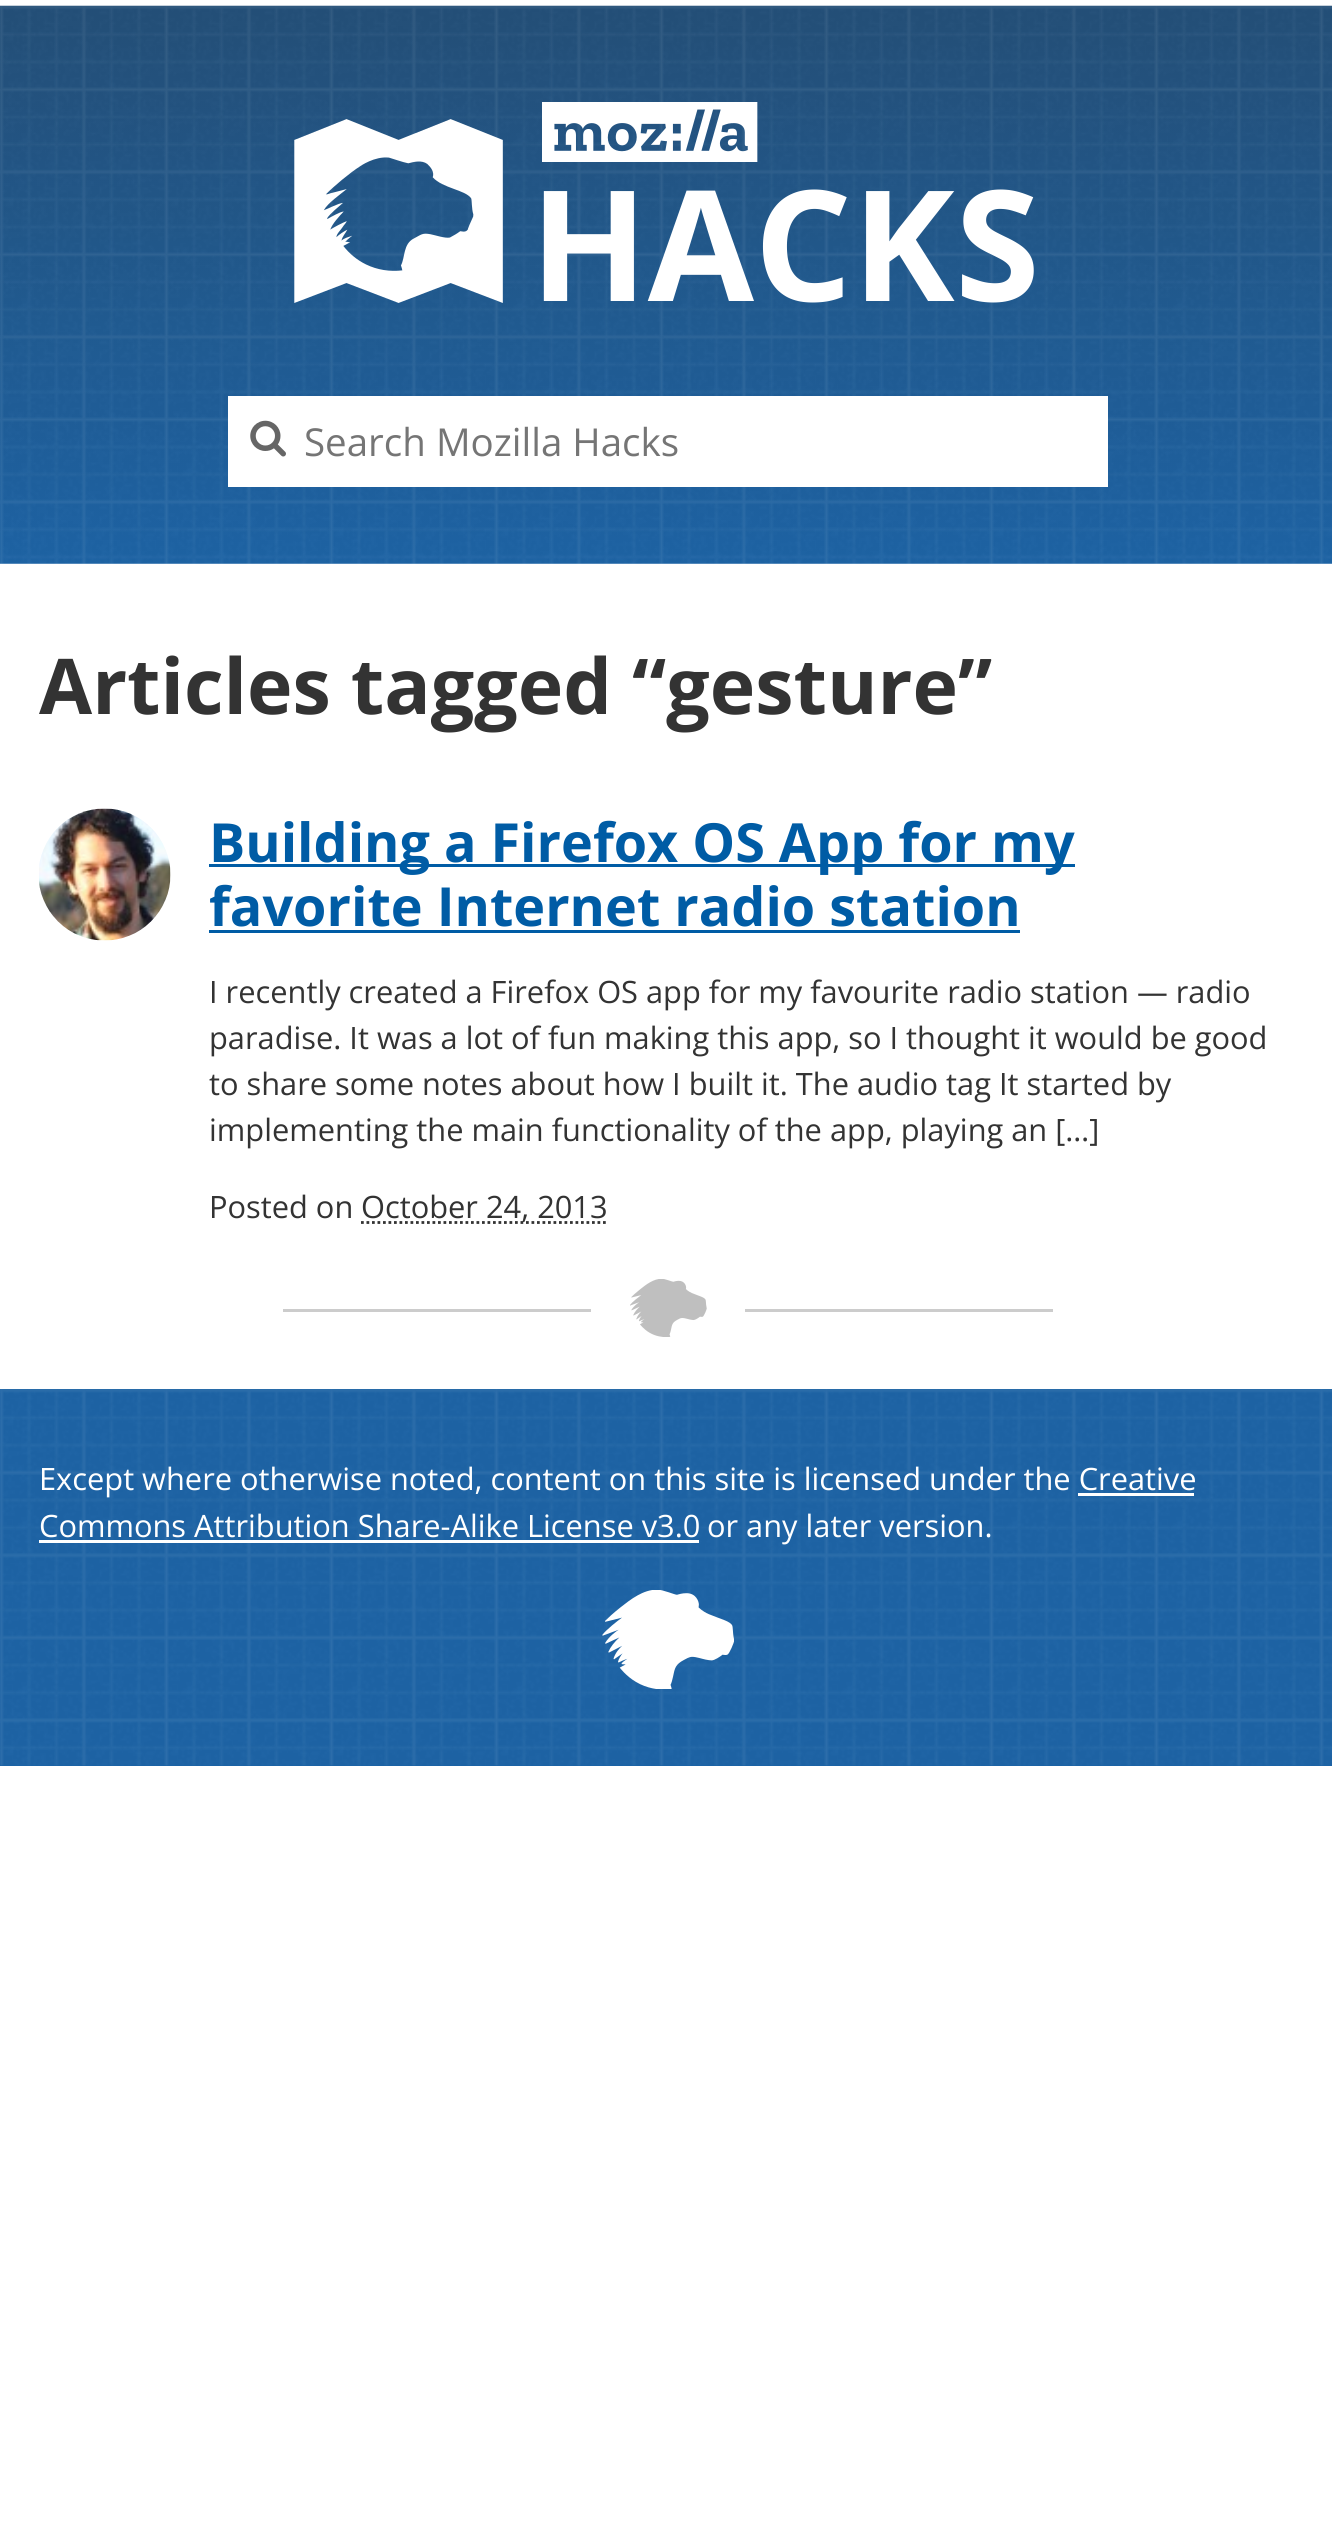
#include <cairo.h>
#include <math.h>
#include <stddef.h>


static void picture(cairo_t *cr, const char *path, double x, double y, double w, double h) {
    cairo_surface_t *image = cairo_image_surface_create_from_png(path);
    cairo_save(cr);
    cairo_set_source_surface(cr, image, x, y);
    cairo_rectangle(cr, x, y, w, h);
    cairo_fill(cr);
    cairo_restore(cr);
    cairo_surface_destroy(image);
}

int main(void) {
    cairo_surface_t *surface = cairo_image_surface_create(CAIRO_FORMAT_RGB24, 1332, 2523);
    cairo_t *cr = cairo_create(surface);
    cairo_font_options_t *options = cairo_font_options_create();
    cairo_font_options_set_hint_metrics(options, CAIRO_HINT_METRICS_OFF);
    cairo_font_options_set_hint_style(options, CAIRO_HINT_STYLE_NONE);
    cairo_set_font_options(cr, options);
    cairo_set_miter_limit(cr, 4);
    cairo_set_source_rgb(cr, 1, 1, 1);
    cairo_paint(cr);
    picture(cr, "img1.png", 0, 5, 1332, 559);
    picture(cr, "img2.png", 294, 119, 209, 184);
    picture(cr, "img3.png", 542, 102, 216, 60);
    cairo_select_font_face(cr, "Open Sans", CAIRO_FONT_SLANT_NORMAL, CAIRO_FONT_WEIGHT_BOLD);
    cairo_set_font_size(cr, 154);
    cairo_set_source_rgb(cr, 1, 1, 1);
    cairo_move_to(cr, 530, 301);
    cairo_show_text(cr, "HACK");
    cairo_move_to(cr, 955, 301);
    cairo_show_text(cr, "S");
    cairo_rectangle(cr, 228, 396, 880, 91);
    cairo_fill(cr);
    picture(cr, "img4.png", 250, 420, 36, 37);
    cairo_select_font_face(cr, "Open Sans", CAIRO_FONT_SLANT_NORMAL, CAIRO_FONT_WEIGHT_NORMAL);
    cairo_set_font_size(cr, 38.5);
    cairo_set_source_rgb(cr, 0.459, 0.459, 0.459);
    cairo_move_to(cr, 304, 456);
    cairo_show_text(cr, "Search Mozilla Hacks");
    cairo_select_font_face(cr, "Open Sans", CAIRO_FONT_SLANT_NORMAL, CAIRO_FONT_WEIGHT_BOLD);
    cairo_set_font_size(cr, 77);
    cairo_set_source_rgb(cr, 0.2, 0.2, 0.2);
    cairo_move_to(cr, 39, 714);
    cairo_show_text(cr, "Articles tagged “gesture”");
    picture(cr, "img5.png", 39, 808, 132, 133);
    cairo_set_source_rgb(cr, 0, 0.361, 0.647);
    cairo_rectangle(cr, 209, 864, 866, 3);
    cairo_fill(cr);
    cairo_set_font_size(cr, 53.9);
    cairo_move_to(cr, 209, 862);
    cairo_show_text(cr, "Building a Firefox OS App for my");
    cairo_move_to(cr, 209, 926);
    cairo_show_text(cr, "favorite Internet radio station");
    cairo_rectangle(cr, 209, 930, 811, 3);
    cairo_fill(cr);
    cairo_select_font_face(cr, "Open Sans", CAIRO_FONT_SLANT_NORMAL, CAIRO_FONT_WEIGHT_NORMAL);
    cairo_set_font_size(cr, 30.8);
    cairo_set_source_rgb(cr, 0.2, 0.2, 0.2);
    cairo_move_to(cr, 209, 1003);
    cairo_show_text(cr, "I recently created a Firefox OS app for my favourite radio station — radio");
    cairo_move_to(cr, 209, 1049);
    cairo_show_text(cr, "paradise. It was a lot of fun making this app, so I thought it would be good");
    cairo_move_to(cr, 209, 1095);
    cairo_show_text(cr, "to share some notes about how I built it. The audio tag It started by");
    cairo_move_to(cr, 209, 1141);
    cairo_show_text(cr, "implementing the main functionality of the app, playing an […]");
    cairo_move_to(cr, 209, 1218);
    cairo_show_text(cr, "Posted on");
    cairo_new_path(cr);
    cairo_move_to(cr, 361, 1222.5);
    cairo_line_to(cr, 607.5, 1222.5);
    cairo_set_line_width(cr, 2.8);
    cairo_set_dash(cr, (double[]){2.75, 2.75}, 2, 0);
    cairo_stroke(cr);
    cairo_move_to(cr, 361, 1218);
    cairo_show_text(cr, "October 24, 2013");
    cairo_set_source_rgb(cr, 0.8, 0.8, 0.8);
    cairo_rectangle(cr, 283, 1309, 308, 3);
    cairo_fill(cr);
    cairo_rectangle(cr, 745, 1309, 308, 3);
    cairo_fill(cr);
    picture(cr, "img6.png", 630, 1279, 77, 58);
    cairo_set_source_rgb(cr, 0.094, 0.384, 0.655);
    cairo_rectangle(cr, 0, 1389, 1332, 377);
    cairo_fill(cr);
    picture(cr, "img7.png", 0, 1389, 1332, 377);
    cairo_set_source_rgb(cr, 1, 1, 1);
    cairo_move_to(cr, 39, 1490);
    cairo_show_text(cr, "Except where otherwise noted, content on this site is licensed under the Creative");
    cairo_move_to(cr, 39, 1537);
    cairo_show_text(cr, "Commons Attribution Share-Alike License v3.0");
    cairo_rectangle(cr, 1078, 1493, 116, 3);
    cairo_fill(cr);
    cairo_rectangle(cr, 39, 1540, 660, 3);
    cairo_fill(cr);
    cairo_move_to(cr, 707, 1537);
    cairo_show_text(cr, "or any later version.");
    picture(cr, "img8.png", 602, 1590, 132, 99);
    cairo_surface_write_to_png(surface, "page.png");
    cairo_font_options_destroy(options);
    cairo_destroy(cr);
    cairo_surface_destroy(surface);
    return 0;
}
